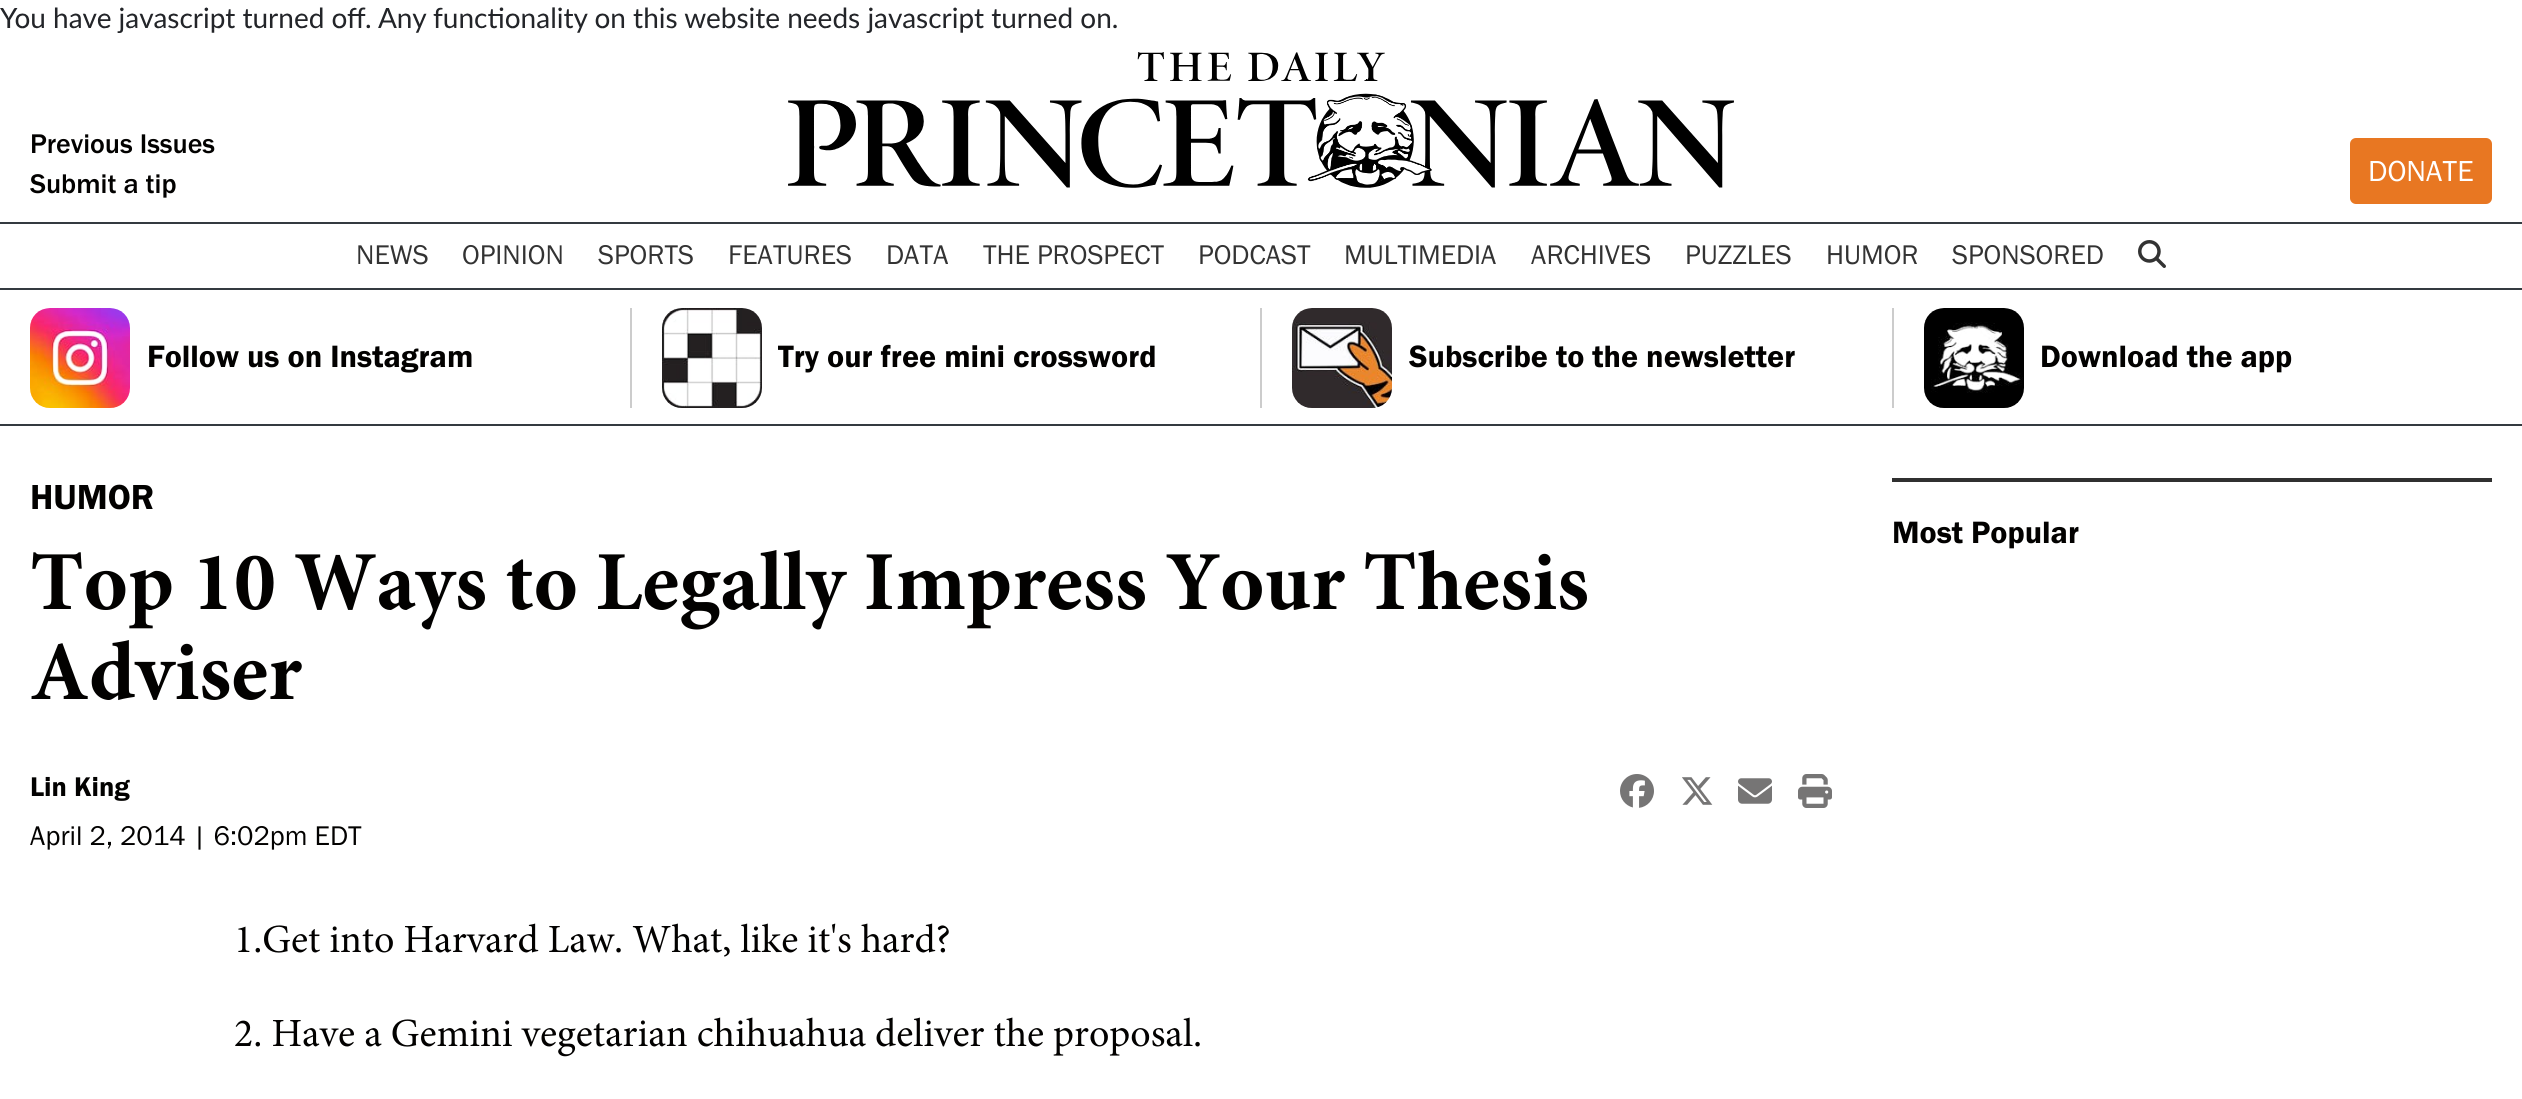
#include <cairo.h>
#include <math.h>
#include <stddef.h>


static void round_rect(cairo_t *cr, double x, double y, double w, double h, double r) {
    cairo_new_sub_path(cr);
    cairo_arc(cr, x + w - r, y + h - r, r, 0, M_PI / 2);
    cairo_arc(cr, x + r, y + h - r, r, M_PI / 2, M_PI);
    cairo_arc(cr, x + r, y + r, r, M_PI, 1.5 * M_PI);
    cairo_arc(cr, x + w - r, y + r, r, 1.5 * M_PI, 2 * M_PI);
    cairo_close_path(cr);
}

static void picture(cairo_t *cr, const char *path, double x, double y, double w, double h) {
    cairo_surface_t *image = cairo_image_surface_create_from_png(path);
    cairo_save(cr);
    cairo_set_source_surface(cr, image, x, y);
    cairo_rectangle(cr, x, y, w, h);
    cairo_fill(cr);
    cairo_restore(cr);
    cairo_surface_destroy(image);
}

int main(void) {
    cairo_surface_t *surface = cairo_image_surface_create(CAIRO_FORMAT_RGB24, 2522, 1099);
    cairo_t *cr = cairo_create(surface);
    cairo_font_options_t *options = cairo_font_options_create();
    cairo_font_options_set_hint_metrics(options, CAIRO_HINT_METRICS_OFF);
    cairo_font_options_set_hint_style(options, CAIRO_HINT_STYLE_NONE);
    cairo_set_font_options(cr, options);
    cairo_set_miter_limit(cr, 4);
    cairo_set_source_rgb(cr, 1, 1, 1);
    cairo_paint(cr);
    picture(cr, "img1.png", 0, 7, 1117, 26);
    cairo_select_font_face(cr, "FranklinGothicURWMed", CAIRO_FONT_SLANT_NORMAL, CAIRO_FONT_WEIGHT_NORMAL);
    cairo_set_font_size(cr, 28);
    cairo_set_source_rgb(cr, 0.008, 0.004, 0);
    cairo_move_to(cr, 30, 153);
    cairo_show_text(cr, "Previous Issues");
    cairo_move_to(cr, 30, 193);
    cairo_show_text(cr, "Submit a tip");
    picture(cr, "img2.png", 788, 52, 946, 136);
    cairo_set_source_rgb(cr, 0.91, 0.467, 0.133);
    round_rect(cr, 2351, 139, 140, 64, 5);
    cairo_fill_preserve(cr);
    cairo_stroke(cr);
    cairo_select_font_face(cr, "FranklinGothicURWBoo", CAIRO_FONT_SLANT_NORMAL, CAIRO_FONT_WEIGHT_NORMAL);
    cairo_set_font_size(cr, 30);
    cairo_set_source_rgb(cr, 1, 1, 1);
    cairo_move_to(cr, 2368, 181);
    cairo_show_text(cr, "DONATE");
    cairo_set_source_rgb(cr, 0.204, 0.227, 0.251);
    cairo_rectangle(cr, 0, 222, 2522, 2);
    cairo_fill(cr);
    cairo_rectangle(cr, 0, 288, 2522, 2);
    cairo_fill(cr);
    cairo_set_font_size(cr, 28);
    cairo_set_source_rgb(cr, 0.2, 0.2, 0.2);
    cairo_move_to(cr, 356, 264);
    cairo_show_text(cr, "NEWS");
    cairo_move_to(cr, 462, 264);
    cairo_show_text(cr, "OPINION");
    cairo_move_to(cr, 598, 264);
    cairo_show_text(cr, "SPORTS");
    cairo_move_to(cr, 728, 264);
    cairo_show_text(cr, "FEATURES");
    cairo_move_to(cr, 886, 264);
    cairo_show_text(cr, "DATA");
    cairo_move_to(cr, 983, 264);
    cairo_show_text(cr, "THE PROSPECT");
    cairo_move_to(cr, 1198, 264);
    cairo_show_text(cr, "PODCAST");
    cairo_move_to(cr, 1344, 264);
    cairo_show_text(cr, "MULTIMEDIA");
    cairo_move_to(cr, 1531, 264);
    cairo_show_text(cr, "ARCHIVES");
    cairo_move_to(cr, 1685, 264);
    cairo_show_text(cr, "PUZZLES");
    cairo_move_to(cr, 1826, 264);
    cairo_show_text(cr, "HUMOR");
    cairo_move_to(cr, 1952, 264);
    cairo_show_text(cr, "SPONSORED");
    picture(cr, "img3.png", 2138, 240, 28, 28);
    cairo_set_source_rgb(cr, 0.204, 0.227, 0.251);
    cairo_rectangle(cr, 0, 424, 2522, 2);
    cairo_fill(cr);
    cairo_set_source_rgb(cr, 0.8, 0.8, 0.8);
    cairo_rectangle(cr, 630, 308, 2, 100);
    cairo_fill(cr);
    picture(cr, "img4.png", 30, 308, 100, 100);
    cairo_select_font_face(cr, "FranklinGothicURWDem", CAIRO_FONT_SLANT_NORMAL, CAIRO_FONT_WEIGHT_NORMAL);
    cairo_set_font_size(cr, 32);
    cairo_set_source_rgb(cr, 0.008, 0.004, 0);
    cairo_move_to(cr, 147, 367);
    cairo_show_text(cr, "Follow us on Instagram");
    cairo_set_source_rgb(cr, 0.8, 0.8, 0.8);
    cairo_rectangle(cr, 1260, 308, 2, 100);
    cairo_fill(cr);
    picture(cr, "img5.png", 662, 308, 100, 100);
    cairo_set_source_rgb(cr, 0.008, 0.004, 0);
    cairo_move_to(cr, 778, 367);
    cairo_show_text(cr, "Try our free mini crossword");
    cairo_set_source_rgb(cr, 0.8, 0.8, 0.8);
    cairo_rectangle(cr, 1892, 308, 2, 100);
    cairo_fill(cr);
    picture(cr, "img6.png", 1292, 308, 100, 100);
    cairo_set_source_rgb(cr, 0.008, 0.004, 0);
    cairo_move_to(cr, 1409, 367);
    cairo_show_text(cr, "Subscribe to the newsletter");
    picture(cr, "img7.png", 1924, 308, 100, 100);
    cairo_move_to(cr, 2040, 367);
    cairo_show_text(cr, "Download the app");
    cairo_set_font_size(cr, 36);
    cairo_move_to(cr, 30, 509);
    cairo_show_text(cr, "HUMOR");
    cairo_select_font_face(cr, "Minion", CAIRO_FONT_SLANT_NORMAL, CAIRO_FONT_WEIGHT_BOLD);
    cairo_set_font_size(cr, 84);
    cairo_move_to(cr, 30, 609);
    cairo_show_text(cr, "Top 10 Ways to Legally Impress Your Thesis");
    cairo_move_to(cr, 30, 699);
    cairo_show_text(cr, "Adviser");
    cairo_select_font_face(cr, "FranklinGothicURWDem", CAIRO_FONT_SLANT_NORMAL, CAIRO_FONT_WEIGHT_NORMAL);
    cairo_set_font_size(cr, 28);
    cairo_move_to(cr, 30, 796);
    cairo_show_text(cr, "Lin King");
    cairo_select_font_face(cr, "FranklinGothicURWBoo", CAIRO_FONT_SLANT_NORMAL, CAIRO_FONT_WEIGHT_NORMAL);
    cairo_move_to(cr, 30, 845);
    cairo_show_text(cr, "April 2, 2014 | 6:02pm EDT");
    picture(cr, "img8.png", 1620, 774, 34, 34);
    picture(cr, "img9.png", 1682, 777, 31, 28);
    picture(cr, "img10.png", 1738, 778, 34, 26);
    picture(cr, "img11.png", 1798, 774, 34, 34);
    cairo_select_font_face(cr, "Minion", CAIRO_FONT_SLANT_NORMAL, CAIRO_FONT_WEIGHT_NORMAL);
    cairo_set_font_size(cr, 40);
    cairo_move_to(cr, 234, 952);
    cairo_show_text(cr, "1.Get into Harvard Law. What, like it's hard?");
    cairo_move_to(cr, 234, 1046);
    cairo_show_text(cr, "2. Have a Gemini vegetarian chihuahua deliver the proposal.");
    cairo_set_source_rgb(cr, 0.188, 0.188, 0.188);
    cairo_rectangle(cr, 1892, 478, 600, 4);
    cairo_fill(cr);
    cairo_select_font_face(cr, "FranklinGothicURWDem", CAIRO_FONT_SLANT_NORMAL, CAIRO_FONT_WEIGHT_NORMAL);
    cairo_set_font_size(cr, 32);
    cairo_set_source_rgb(cr, 0.008, 0.004, 0);
    cairo_move_to(cr, 1892, 543);
    cairo_show_text(cr, "Most Popular");
    cairo_surface_write_to_png(surface, "page.png");
    cairo_font_options_destroy(options);
    cairo_destroy(cr);
    cairo_surface_destroy(surface);
    return 0;
}
